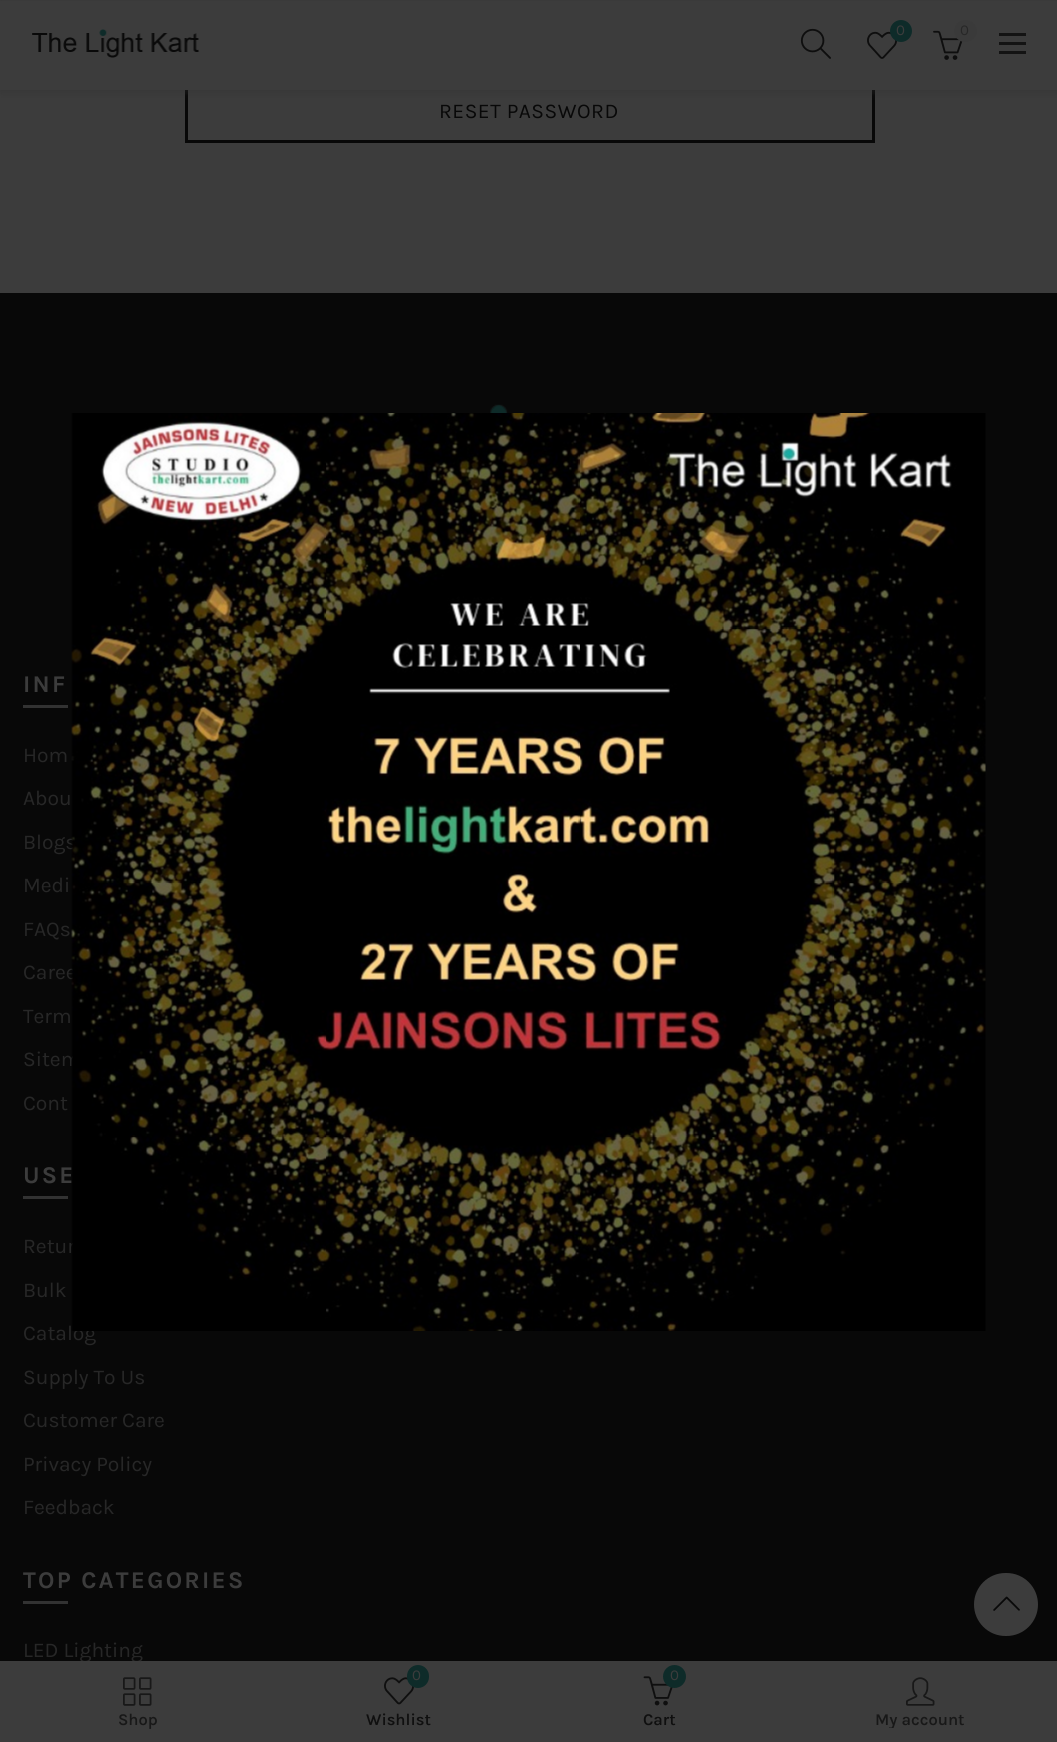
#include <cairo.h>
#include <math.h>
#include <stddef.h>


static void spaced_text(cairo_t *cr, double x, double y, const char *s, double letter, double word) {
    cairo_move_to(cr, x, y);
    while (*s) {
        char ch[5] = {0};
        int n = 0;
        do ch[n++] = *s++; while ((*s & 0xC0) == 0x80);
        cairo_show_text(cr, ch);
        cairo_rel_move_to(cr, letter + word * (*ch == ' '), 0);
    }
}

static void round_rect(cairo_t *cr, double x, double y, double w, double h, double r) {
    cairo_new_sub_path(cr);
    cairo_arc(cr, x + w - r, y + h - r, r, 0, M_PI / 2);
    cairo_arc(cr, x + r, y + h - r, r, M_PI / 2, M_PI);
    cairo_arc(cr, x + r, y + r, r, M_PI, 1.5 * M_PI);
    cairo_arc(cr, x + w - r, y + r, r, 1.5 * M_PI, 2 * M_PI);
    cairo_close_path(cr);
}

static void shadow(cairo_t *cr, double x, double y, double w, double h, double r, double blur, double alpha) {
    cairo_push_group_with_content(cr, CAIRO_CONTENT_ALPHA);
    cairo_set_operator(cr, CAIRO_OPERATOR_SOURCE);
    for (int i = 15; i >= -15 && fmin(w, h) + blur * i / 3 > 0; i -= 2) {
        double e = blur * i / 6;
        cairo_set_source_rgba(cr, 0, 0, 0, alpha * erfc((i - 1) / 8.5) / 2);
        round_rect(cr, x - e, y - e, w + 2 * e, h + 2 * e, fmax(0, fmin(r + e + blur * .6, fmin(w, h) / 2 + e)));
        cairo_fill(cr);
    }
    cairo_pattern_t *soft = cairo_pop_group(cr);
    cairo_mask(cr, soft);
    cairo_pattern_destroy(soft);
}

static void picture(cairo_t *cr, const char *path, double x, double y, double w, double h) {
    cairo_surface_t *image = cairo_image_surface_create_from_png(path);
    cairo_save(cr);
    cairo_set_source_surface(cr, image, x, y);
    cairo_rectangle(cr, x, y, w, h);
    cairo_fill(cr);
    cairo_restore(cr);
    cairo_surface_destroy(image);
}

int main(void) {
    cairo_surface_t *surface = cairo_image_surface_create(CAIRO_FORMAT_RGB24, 1057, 1742);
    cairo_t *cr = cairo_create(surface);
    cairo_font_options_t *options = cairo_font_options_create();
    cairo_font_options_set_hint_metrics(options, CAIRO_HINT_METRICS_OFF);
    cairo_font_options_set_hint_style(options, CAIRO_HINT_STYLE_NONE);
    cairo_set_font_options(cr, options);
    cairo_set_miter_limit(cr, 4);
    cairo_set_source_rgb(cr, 0.235, 0.235, 0.235);
    cairo_paint(cr);
    cairo_rectangle(cr, 186.5, 81.5, 687, 60);
    cairo_set_source_rgb(cr, 0.035, 0.035, 0.035);
    cairo_set_line_width(cr, 3);
    cairo_stroke(cr);
    cairo_set_source_rgb(cr, 0.184, 0.184, 0.184);
    shadow(cr, 0, 2, 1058, 90, 0, 4, 0.5);
    cairo_set_source_rgb(cr, 0.235, 0.235, 0.235);
    cairo_rectangle(cr, 0, 1, 1057, 89);
    cairo_fill(cr);
    picture(cr, "img1.png", 32, 29, 168, 29);
    picture(cr, "img2.png", 800, 28, 31, 31);
    picture(cr, "img3.png", 867, 31, 30, 28);
    cairo_set_source_rgb(cr, 0.055, 0.169, 0.161);
    cairo_arc(cr, 901, 31, 11, 0, 2 * M_PI);
    cairo_fill(cr);
    cairo_select_font_face(cr, "Karla", CAIRO_FONT_SLANT_NORMAL, CAIRO_FONT_WEIGHT_NORMAL);
    cairo_set_font_size(cr, 15);
    cairo_set_source_rgb(cr, 0.235, 0.235, 0.235);
    cairo_move_to(cr, 896, 35);
    cairo_show_text(cr, "0");
    picture(cr, "img4.png", 933, 30, 30, 30);
    cairo_set_source_rgb(cr, 0.227, 0.227, 0.227);
    round_rect(cr, 954, 20, 23, 22, 11);
    cairo_fill(cr);
    cairo_set_source_rgb(cr, 0.153, 0.153, 0.153);
    cairo_move_to(cr, 960, 35);
    cairo_show_text(cr, "0");
    cairo_set_source_rgb(cr, 0.075, 0.075, 0.075);
    cairo_rectangle(cr, 999, 42, 27, 3);
    cairo_fill(cr);
    cairo_rectangle(cr, 999, 33, 27, 3);
    cairo_fill(cr);
    cairo_rectangle(cr, 999, 51, 27, 3);
    cairo_fill(cr);
    cairo_set_font_size(cr, 21);
    cairo_set_source_rgb(cr, 0.035, 0.035, 0.035);
    spaced_text(cr, 439, 118, "RESET PASSWORD", 0.5, 0);
    cairo_rectangle(cr, 0, 293, 1057, 1368);
    cairo_fill(cr);
    picture(cr, "img5.png", 490, 404, 18, 9);
    cairo_select_font_face(cr, "Karla", CAIRO_FONT_SLANT_NORMAL, CAIRO_FONT_WEIGHT_BOLD);
    cairo_set_font_size(cr, 24);
    cairo_set_source_rgb(cr, 0.235, 0.235, 0.235);
    spaced_text(cr, 23, 692, "INF", 2.25, 0);
    cairo_set_source_rgb(cr, 0.196, 0.196, 0.196);
    cairo_rectangle(cr, 23, 705, 45, 3);
    cairo_fill(cr);
    cairo_select_font_face(cr, "Karla", CAIRO_FONT_SLANT_NORMAL, CAIRO_FONT_WEIGHT_NORMAL);
    cairo_set_font_size(cr, 21);
    cairo_set_source_rgb(cr, 0.153, 0.153, 0.153);
    cairo_move_to(cr, 23, 762);
    cairo_show_text(cr, "Hom");
    cairo_move_to(cr, 23, 805);
    cairo_show_text(cr, "Abou");
    cairo_move_to(cr, 23, 849);
    cairo_show_text(cr, "Blogs");
    cairo_move_to(cr, 23, 892);
    cairo_show_text(cr, "Medi");
    cairo_move_to(cr, 23, 936);
    cairo_show_text(cr, "FAQs");
    cairo_move_to(cr, 23, 979);
    cairo_show_text(cr, "Caree");
    cairo_move_to(cr, 23, 1023);
    cairo_show_text(cr, "Term");
    cairo_move_to(cr, 23, 1066);
    cairo_show_text(cr, "Sitem");
    cairo_move_to(cr, 23, 1110);
    cairo_show_text(cr, "Cont");
    cairo_select_font_face(cr, "Karla", CAIRO_FONT_SLANT_NORMAL, CAIRO_FONT_WEIGHT_BOLD);
    cairo_set_font_size(cr, 24);
    cairo_set_source_rgb(cr, 0.235, 0.235, 0.235);
    spaced_text(cr, 23, 1183, "USE", 2.25, 0);
    cairo_set_source_rgb(cr, 0.196, 0.196, 0.196);
    cairo_rectangle(cr, 23, 1196, 45, 3);
    cairo_fill(cr);
    cairo_select_font_face(cr, "Karla", CAIRO_FONT_SLANT_NORMAL, CAIRO_FONT_WEIGHT_NORMAL);
    cairo_set_font_size(cr, 21);
    cairo_set_source_rgb(cr, 0.153, 0.153, 0.153);
    cairo_move_to(cr, 23, 1253);
    cairo_show_text(cr, "Retur");
    cairo_move_to(cr, 23, 1297);
    cairo_show_text(cr, "Bulk");
    cairo_move_to(cr, 23, 1340);
    cairo_show_text(cr, "Catalog");
    cairo_move_to(cr, 23, 1384);
    cairo_show_text(cr, "Supply To Us");
    cairo_move_to(cr, 23, 1427);
    cairo_show_text(cr, "Customer Care");
    cairo_move_to(cr, 23, 1471);
    cairo_show_text(cr, "Privacy Policy");
    cairo_move_to(cr, 23, 1514);
    cairo_show_text(cr, "Feedback");
    cairo_select_font_face(cr, "Karla", CAIRO_FONT_SLANT_NORMAL, CAIRO_FONT_WEIGHT_BOLD);
    cairo_set_font_size(cr, 24);
    cairo_set_source_rgb(cr, 0.235, 0.235, 0.235);
    spaced_text(cr, 23, 1588, "TOP CATEGORIES", 2.25, 0);
    cairo_set_source_rgb(cr, 0.196, 0.196, 0.196);
    cairo_rectangle(cr, 23, 1601, 45, 3);
    cairo_fill(cr);
    cairo_select_font_face(cr, "Karla", CAIRO_FONT_SLANT_NORMAL, CAIRO_FONT_WEIGHT_NORMAL);
    cairo_set_font_size(cr, 21);
    cairo_set_source_rgb(cr, 0.153, 0.153, 0.153);
    cairo_move_to(cr, 23, 1657);
    cairo_show_text(cr, "LED Lighting");
    picture(cr, "img6.png", 71, 413, 915, 918);
    cairo_set_source_rgb(cr, 0, 0, 0);
    cairo_new_path(cr);
    cairo_move_to(cr, 897.5, 429);
    cairo_line_to(cr, 929, 461);
    cairo_line_to(cr, 928, 462);
    cairo_line_to(cr, 896.5, 430);
    cairo_close_path(cr);
    cairo_fill(cr);
    cairo_set_source_rgb(cr, 0.235, 0.235, 0.235);
    round_rect(cr, 973, 1572, 66, 65, 32.5);
    cairo_fill_preserve(cr);
    cairo_set_source_rgb(cr, 0.035, 0.035, 0.035);
    cairo_set_line_width(cr, 2);
    cairo_stroke(cr);
    picture(cr, "img7.png", 993, 1596, 27, 15);
    cairo_set_source_rgb(cr, 0.235, 0.235, 0.235);
    cairo_rectangle(cr, 81, 1661, 59, 2);
    cairo_fill(cr);
    picture(cr, "img8.png", 123, 1677, 29, 29);
    cairo_select_font_face(cr, "Karla SemiBold", CAIRO_FONT_SLANT_NORMAL, CAIRO_FONT_WEIGHT_NORMAL);
    cairo_set_font_size(cr, 16.5);
    cairo_set_source_rgb(cr, 0.094, 0.094, 0.094);
    cairo_move_to(cr, 118, 1725);
    cairo_show_text(cr, "Shop");
    picture(cr, "img9.png", 384, 1677, 30, 28);
    cairo_set_source_rgb(cr, 0.055, 0.169, 0.161);
    round_rect(cr, 407, 1665, 22, 23, 11);
    cairo_fill(cr);
    cairo_select_font_face(cr, "Karla", CAIRO_FONT_SLANT_NORMAL, CAIRO_FONT_WEIGHT_NORMAL);
    cairo_set_font_size(cr, 15);
    cairo_set_source_rgb(cr, 0.235, 0.235, 0.235);
    cairo_move_to(cr, 412, 1680);
    cairo_show_text(cr, "0");
    cairo_select_font_face(cr, "Karla SemiBold", CAIRO_FONT_SLANT_NORMAL, CAIRO_FONT_WEIGHT_NORMAL);
    cairo_set_font_size(cr, 16.5);
    cairo_set_source_rgb(cr, 0.059, 0.059, 0.059);
    cairo_move_to(cr, 366, 1725);
    cairo_show_text(cr, "Wishlist");
    picture(cr, "img10.png", 643, 1676, 30, 30);
    cairo_set_source_rgb(cr, 0.055, 0.169, 0.161);
    cairo_arc(cr, 674.5, 1676.5, 11.5, 0, 2 * M_PI);
    cairo_fill(cr);
    cairo_select_font_face(cr, "Karla", CAIRO_FONT_SLANT_NORMAL, CAIRO_FONT_WEIGHT_NORMAL);
    cairo_set_font_size(cr, 15);
    cairo_set_source_rgb(cr, 0.235, 0.235, 0.235);
    cairo_move_to(cr, 670, 1680);
    cairo_show_text(cr, "0");
    cairo_select_font_face(cr, "Karla SemiBold", CAIRO_FONT_SLANT_NORMAL, CAIRO_FONT_WEIGHT_NORMAL);
    cairo_set_font_size(cr, 16.5);
    cairo_set_source_rgb(cr, 0.059, 0.059, 0.059);
    cairo_move_to(cr, 643, 1725);
    cairo_show_text(cr, "Cart");
    picture(cr, "img11.png", 906, 1677, 29, 29);
    cairo_save(cr);
    cairo_rectangle(cr, 804, 1712, 231, 16);
    cairo_clip(cr);
    cairo_set_source_rgb(cr, 0.094, 0.094, 0.094);
    cairo_move_to(cr, 875, 1725);
    cairo_show_text(cr, "My account");
    cairo_restore(cr);
    cairo_surface_write_to_png(surface, "page.png");
    cairo_font_options_destroy(options);
    cairo_destroy(cr);
    cairo_surface_destroy(surface);
    return 0;
}
